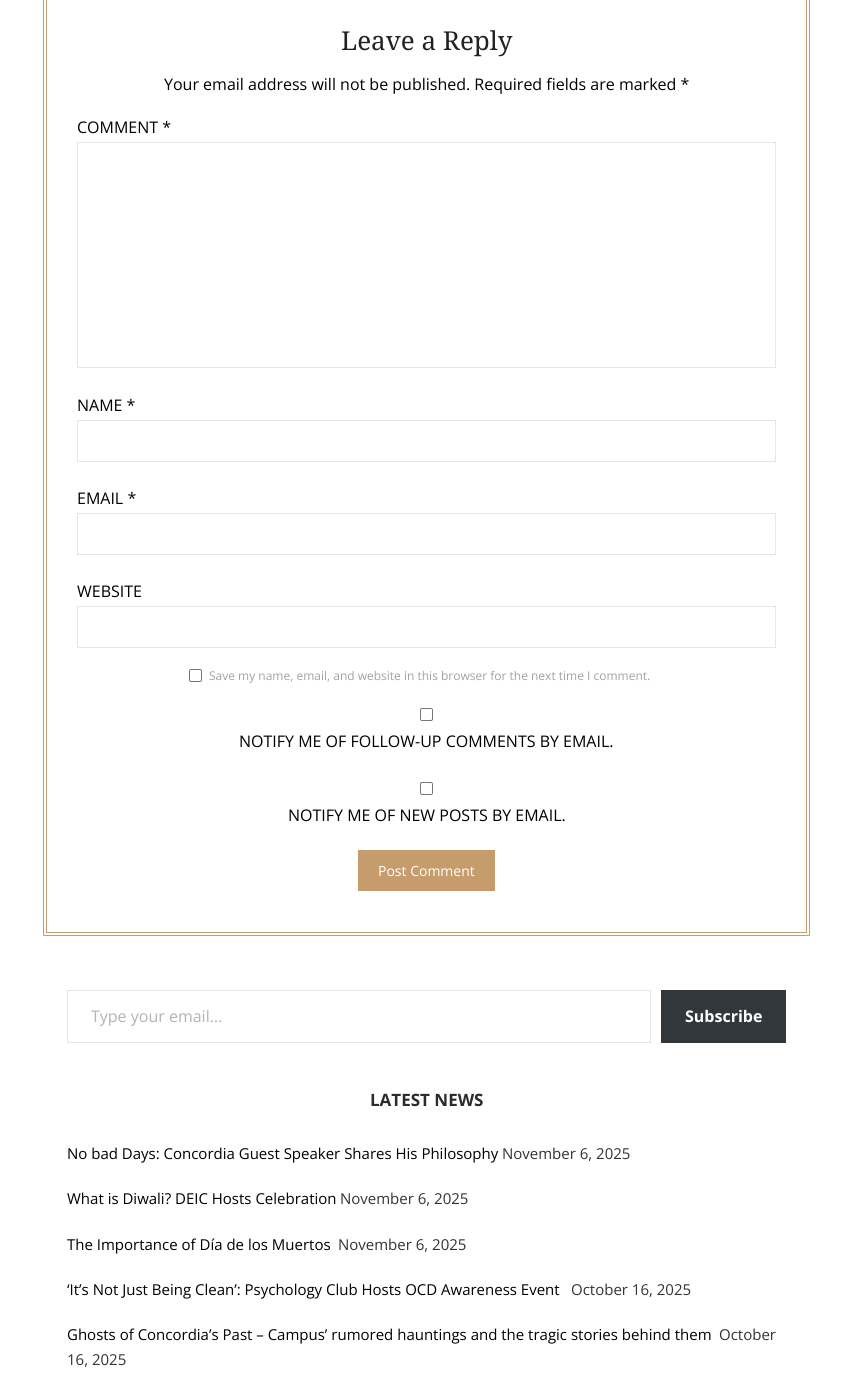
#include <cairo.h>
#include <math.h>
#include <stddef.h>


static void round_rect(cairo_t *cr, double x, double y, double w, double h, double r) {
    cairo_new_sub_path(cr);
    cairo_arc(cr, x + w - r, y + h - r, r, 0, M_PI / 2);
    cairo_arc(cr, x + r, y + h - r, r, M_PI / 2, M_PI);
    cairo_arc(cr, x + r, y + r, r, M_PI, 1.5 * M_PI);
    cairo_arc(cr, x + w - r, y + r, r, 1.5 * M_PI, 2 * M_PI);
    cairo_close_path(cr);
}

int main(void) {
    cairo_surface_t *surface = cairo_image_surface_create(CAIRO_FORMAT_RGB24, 853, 1374);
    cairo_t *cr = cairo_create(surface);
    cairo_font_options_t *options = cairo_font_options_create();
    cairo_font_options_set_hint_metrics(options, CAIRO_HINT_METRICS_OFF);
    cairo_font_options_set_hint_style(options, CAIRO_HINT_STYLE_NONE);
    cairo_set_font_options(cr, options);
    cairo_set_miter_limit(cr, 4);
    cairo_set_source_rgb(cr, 1, 1, 1);
    cairo_paint(cr);
    round_rect(cr, 43.5, -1.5, 766, 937, 0.5);
    cairo_set_source_rgb(cr, 0.776, 0.612, 0.427);
    cairo_set_line_width(cr, 1);
    cairo_stroke(cr);
    cairo_rectangle(cr, 46.5, -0.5, 760, 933);
    cairo_stroke(cr);
    cairo_select_font_face(cr, "Noto Serif", CAIRO_FONT_SLANT_NORMAL, CAIRO_FONT_WEIGHT_NORMAL);
    cairo_set_font_size(cr, 26);
    cairo_set_source_rgb(cr, 0.133, 0.133, 0.133);
    cairo_move_to(cr, 341, 50);
    cairo_show_text(cr, "Leave a Reply");
    cairo_select_font_face(cr, "Open Sans", CAIRO_FONT_SLANT_NORMAL, CAIRO_FONT_WEIGHT_NORMAL);
    cairo_set_font_size(cr, 16);
    cairo_set_source_rgb(cr, 0, 0, 0);
    cairo_move_to(cr, 164, 90);
    cairo_show_text(cr, "Your email address will not be published. Required fields are marked *");
    cairo_move_to(cr, 77, 133);
    cairo_show_text(cr, "COMMENT *");
    cairo_rectangle(cr, 77.5, 142.5, 698, 225);
    cairo_set_source_rgb(cr, 0.898, 0.902, 0.914);
    cairo_stroke(cr);
    cairo_set_source_rgb(cr, 0, 0, 0);
    cairo_move_to(cr, 77, 411);
    cairo_show_text(cr, "NAME *");
    cairo_rectangle(cr, 77.5, 420.5, 698, 41);
    cairo_set_source_rgb(cr, 0.898, 0.902, 0.914);
    cairo_stroke(cr);
    cairo_set_source_rgb(cr, 0, 0, 0);
    cairo_move_to(cr, 77, 504);
    cairo_show_text(cr, "EMAIL *");
    cairo_rectangle(cr, 77.5, 513.5, 698, 41);
    cairo_set_source_rgb(cr, 0.898, 0.902, 0.914);
    cairo_stroke(cr);
    cairo_set_source_rgb(cr, 0, 0, 0);
    cairo_move_to(cr, 77, 597);
    cairo_show_text(cr, "WEBSITE");
    cairo_rectangle(cr, 77.5, 606.5, 698, 41);
    cairo_set_source_rgb(cr, 0.898, 0.902, 0.914);
    cairo_stroke(cr);
    round_rect(cr, 189.5, 669.5, 12, 12, 1.5);
    cairo_set_source_rgb(cr, 0.463, 0.463, 0.463);
    cairo_stroke(cr);
    cairo_set_font_size(cr, 12);
    cairo_set_source_rgb(cr, 0.635, 0.635, 0.635);
    cairo_move_to(cr, 209, 680);
    cairo_show_text(cr, "Save my name, email, and website in this browser for the next time I comment.");
    round_rect(cr, 420.5, 708.5, 12, 12, 1.5);
    cairo_set_source_rgb(cr, 0.463, 0.463, 0.463);
    cairo_stroke(cr);
    cairo_set_font_size(cr, 16);
    cairo_set_source_rgb(cr, 0, 0, 0);
    cairo_move_to(cr, 239, 747);
    cairo_show_text(cr, "NOTIFY ME OF FOLLOW-UP COMMENTS BY EMAIL.");
    round_rect(cr, 420.5, 782.5, 12, 12, 1.5);
    cairo_set_source_rgb(cr, 0.463, 0.463, 0.463);
    cairo_stroke(cr);
    cairo_set_source_rgb(cr, 0, 0, 0);
    cairo_move_to(cr, 288, 821);
    cairo_show_text(cr, "NOTIFY ME OF NEW POSTS BY EMAIL.");
    cairo_set_source_rgb(cr, 0.776, 0.612, 0.427);
    cairo_rectangle(cr, 358, 850, 137, 41);
    cairo_fill(cr);
    cairo_set_font_size(cr, 14);
    cairo_set_source_rgb(cr, 1, 1, 1);
    cairo_move_to(cr, 378, 876);
    cairo_show_text(cr, "Post Comment");
    cairo_rectangle(cr, 67.5, 990.5, 583, 52);
    cairo_set_source_rgb(cr, 0.898, 0.902, 0.914);
    cairo_stroke(cr);
    cairo_set_font_size(cr, 16);
    cairo_set_source_rgb(cr, 0.702, 0.702, 0.702);
    cairo_move_to(cr, 91, 1022);
    cairo_show_text(cr, "Type your email…");
    cairo_set_source_rgb(cr, 0.196, 0.216, 0.235);
    cairo_rectangle(cr, 661, 990, 125, 53);
    cairo_fill(cr);
    cairo_select_font_face(cr, "Open Sans", CAIRO_FONT_SLANT_NORMAL, CAIRO_FONT_WEIGHT_BOLD);
    cairo_set_source_rgb(cr, 1, 1, 1);
    cairo_move_to(cr, 685, 1022);
    cairo_show_text(cr, "Subscribe");
    cairo_set_font_size(cr, 17);
    cairo_set_source_rgb(cr, 0.169, 0.169, 0.169);
    cairo_move_to(cr, 370, 1106);
    cairo_show_text(cr, "LATEST NEWS");
    cairo_select_font_face(cr, "Open Sans", CAIRO_FONT_SLANT_NORMAL, CAIRO_FONT_WEIGHT_NORMAL);
    cairo_set_font_size(cr, 15);
    cairo_set_source_rgb(cr, 0, 0, 0);
    cairo_move_to(cr, 67, 1159);
    cairo_show_text(cr, "No bad Days: Concordia Guest Speaker Shares His Philosophy");
    cairo_set_source_rgb(cr, 0.2, 0.2, 0.2);
    cairo_move_to(cr, 502, 1159);
    cairo_show_text(cr, "November 6, 2025");
    cairo_set_source_rgb(cr, 0, 0, 0);
    cairo_move_to(cr, 67, 1204);
    cairo_show_text(cr, "What is Diwali? DEIC Hosts Celebration");
    cairo_set_source_rgb(cr, 0.2, 0.2, 0.2);
    cairo_move_to(cr, 340, 1204);
    cairo_show_text(cr, "November 6, 2025");
    cairo_set_source_rgb(cr, 0, 0, 0);
    cairo_move_to(cr, 67, 1250);
    cairo_show_text(cr, "The Importance of Día de los Muertos");
    cairo_set_source_rgb(cr, 0.2, 0.2, 0.2);
    cairo_move_to(cr, 338, 1250);
    cairo_show_text(cr, "November 6, 2025");
    cairo_set_source_rgb(cr, 0, 0, 0);
    cairo_move_to(cr, 67, 1295);
    cairo_show_text(cr, "‘It’s Not Just Being Clean’: Psychology Club Hosts OCD Awareness Event");
    cairo_set_source_rgb(cr, 0.2, 0.2, 0.2);
    cairo_move_to(cr, 571, 1295);
    cairo_show_text(cr, "October 16, 2025");
    cairo_set_source_rgb(cr, 0, 0, 0);
    cairo_move_to(cr, 67, 1340);
    cairo_show_text(cr, "Ghosts of Concordia’s Past – Campus’ rumored hauntings and the tragic stories behind them");
    cairo_set_source_rgb(cr, 0.2, 0.2, 0.2);
    cairo_move_to(cr, 719, 1340);
    cairo_show_text(cr, "October");
    cairo_move_to(cr, 67, 1365);
    cairo_show_text(cr, "16, 2025");
    cairo_surface_write_to_png(surface, "page.png");
    cairo_font_options_destroy(options);
    cairo_destroy(cr);
    cairo_surface_destroy(surface);
    return 0;
}
